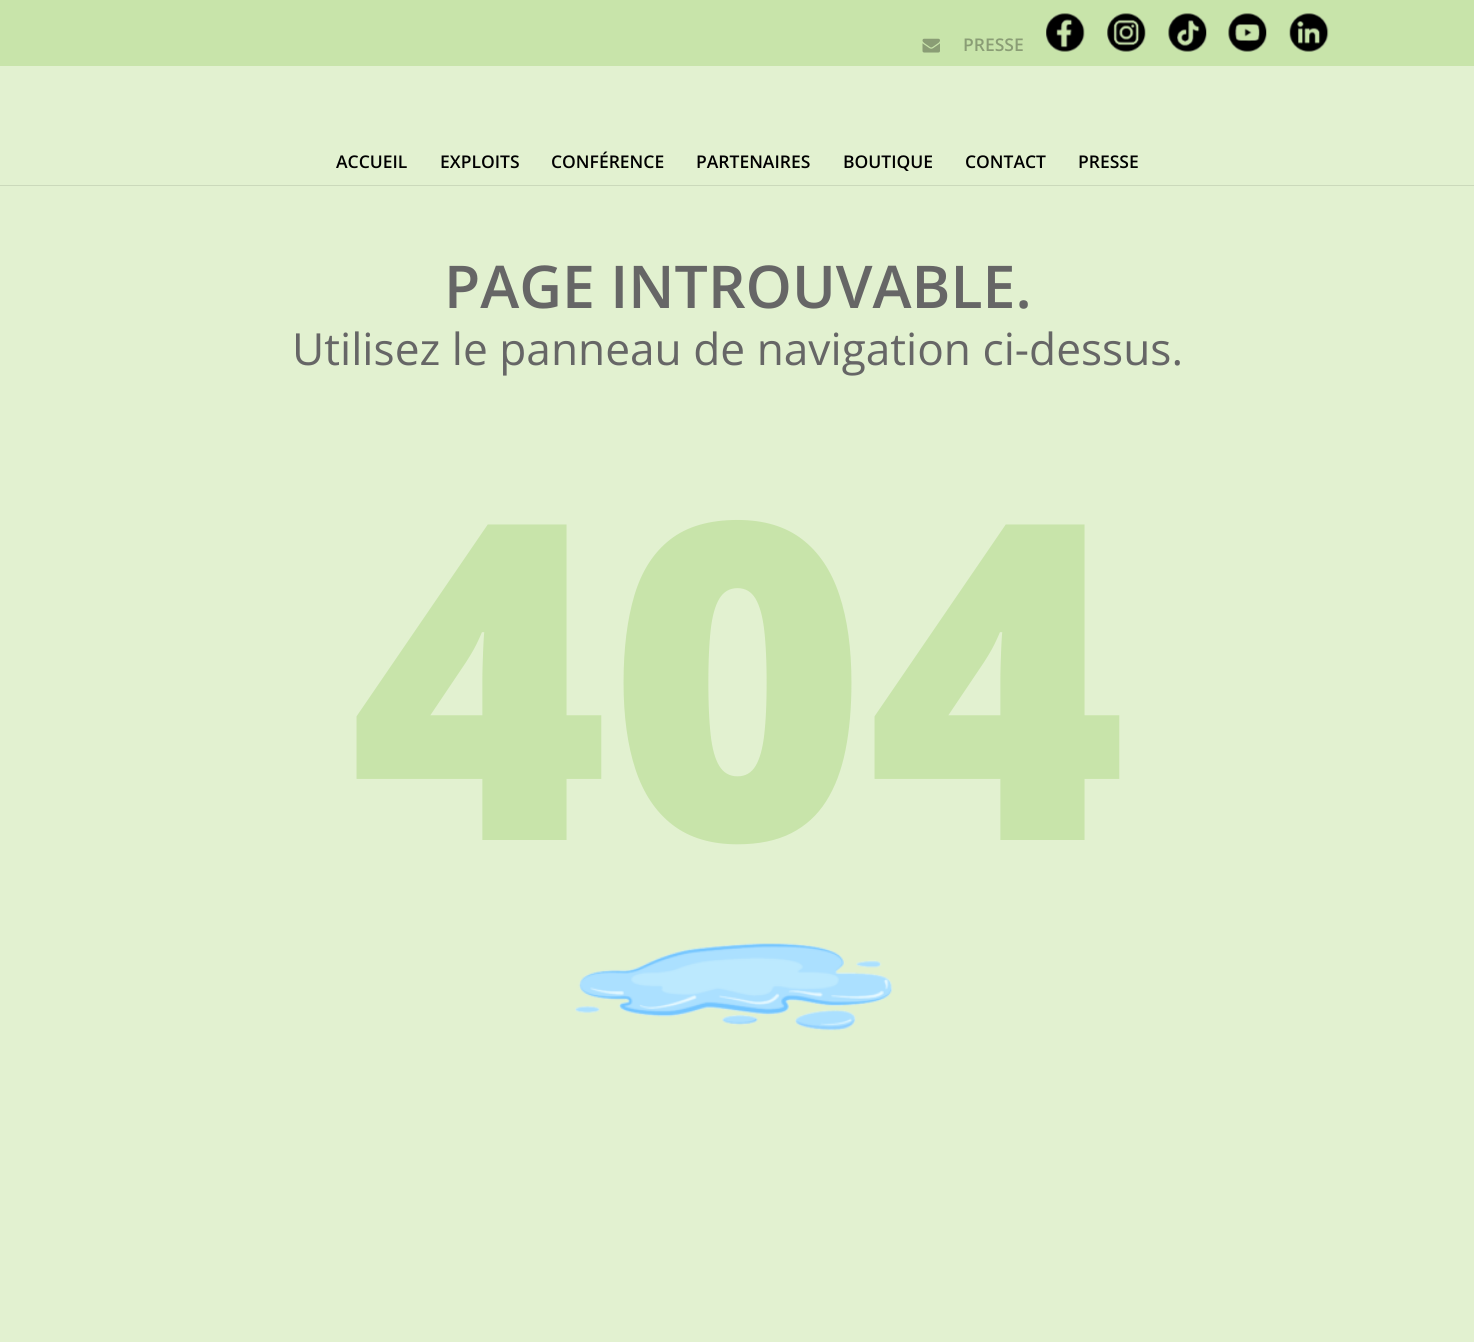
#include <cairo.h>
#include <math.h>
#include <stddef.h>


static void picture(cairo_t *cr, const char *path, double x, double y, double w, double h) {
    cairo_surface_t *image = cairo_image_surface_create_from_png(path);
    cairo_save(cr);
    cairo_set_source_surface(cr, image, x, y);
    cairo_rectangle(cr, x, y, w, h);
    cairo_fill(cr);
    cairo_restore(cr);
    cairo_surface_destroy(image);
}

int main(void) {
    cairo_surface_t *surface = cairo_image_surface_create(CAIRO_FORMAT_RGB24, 1474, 1342);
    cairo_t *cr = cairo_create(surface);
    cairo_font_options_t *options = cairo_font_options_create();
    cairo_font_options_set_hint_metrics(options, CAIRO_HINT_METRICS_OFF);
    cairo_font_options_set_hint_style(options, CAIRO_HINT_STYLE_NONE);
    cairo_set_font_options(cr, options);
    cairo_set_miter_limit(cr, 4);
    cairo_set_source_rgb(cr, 0.886, 0.945, 0.816);
    cairo_paint(cr);
    cairo_set_source_rgb(cr, 0.784, 0.894, 0.667);
    cairo_rectangle(cr, 0, 0, 1474, 66);
    cairo_fill(cr);
    picture(cr, "img1.png", 922, 38, 18, 15);
    cairo_select_font_face(cr, "Open Sans SemiBold", CAIRO_FONT_SLANT_NORMAL, CAIRO_FONT_WEIGHT_NORMAL);
    cairo_set_font_size(cr, 17.5);
    cairo_set_source_rgb(cr, 0.541, 0.616, 0.459);
    cairo_move_to(cr, 963, 51);
    cairo_show_text(cr, "PRESSE");
    picture(cr, "img2.png", 1046, 13, 39, 39);
    picture(cr, "img3.png", 1107, 13, 39, 39);
    picture(cr, "img4.png", 1168, 13, 39, 39);
    picture(cr, "img5.png", 1228, 13, 39, 39);
    picture(cr, "img6.png", 1289, 13, 40, 39);
    cairo_set_source_rgb(cr, 0.796, 0.851, 0.733);
    cairo_rectangle(cr, 0, 185, 1474, 1);
    cairo_fill(cr);
    cairo_set_source_rgb(cr, 0, 0, 0);
    cairo_move_to(cr, 336, 168);
    cairo_show_text(cr, "ACCUEIL");
    cairo_move_to(cr, 440, 168);
    cairo_show_text(cr, "EXPLOITS");
    cairo_move_to(cr, 551, 168);
    cairo_show_text(cr, "CONFÉRENCE");
    cairo_move_to(cr, 696, 168);
    cairo_show_text(cr, "PARTENAIRES");
    cairo_move_to(cr, 843, 168);
    cairo_show_text(cr, "BOUTIQUE");
    cairo_move_to(cr, 965, 168);
    cairo_show_text(cr, "CONTACT");
    cairo_move_to(cr, 1078, 168);
    cairo_show_text(cr, "PRESSE");
    cairo_set_font_size(cr, 59);
    cairo_set_source_rgb(cr, 0.4, 0.4, 0.4);
    cairo_move_to(cr, 444, 308);
    cairo_show_text(cr, "PAGE INTROUVABLE.");
    cairo_select_font_face(cr, "Open Sans", CAIRO_FONT_SLANT_NORMAL, CAIRO_FONT_WEIGHT_NORMAL);
    cairo_set_font_size(cr, 44.25);
    cairo_move_to(cr, 292, 365);
    cairo_show_text(cr, "Utilisez le panneau de navigation ci-dessus.");
    picture(cr, "img7.png", 575, 943, 318, 88);
    cairo_select_font_face(cr, "Open Sans ExtraBold", CAIRO_FONT_SLANT_NORMAL, CAIRO_FONT_WEIGHT_NORMAL);
    cairo_set_font_size(cr, 442);
    cairo_set_source_rgb(cr, 0.784, 0.894, 0.667);
    cairo_move_to(cr, 349, 840);
    cairo_show_text(cr, "404");
    cairo_surface_write_to_png(surface, "page.png");
    cairo_font_options_destroy(options);
    cairo_destroy(cr);
    cairo_surface_destroy(surface);
    return 0;
}
